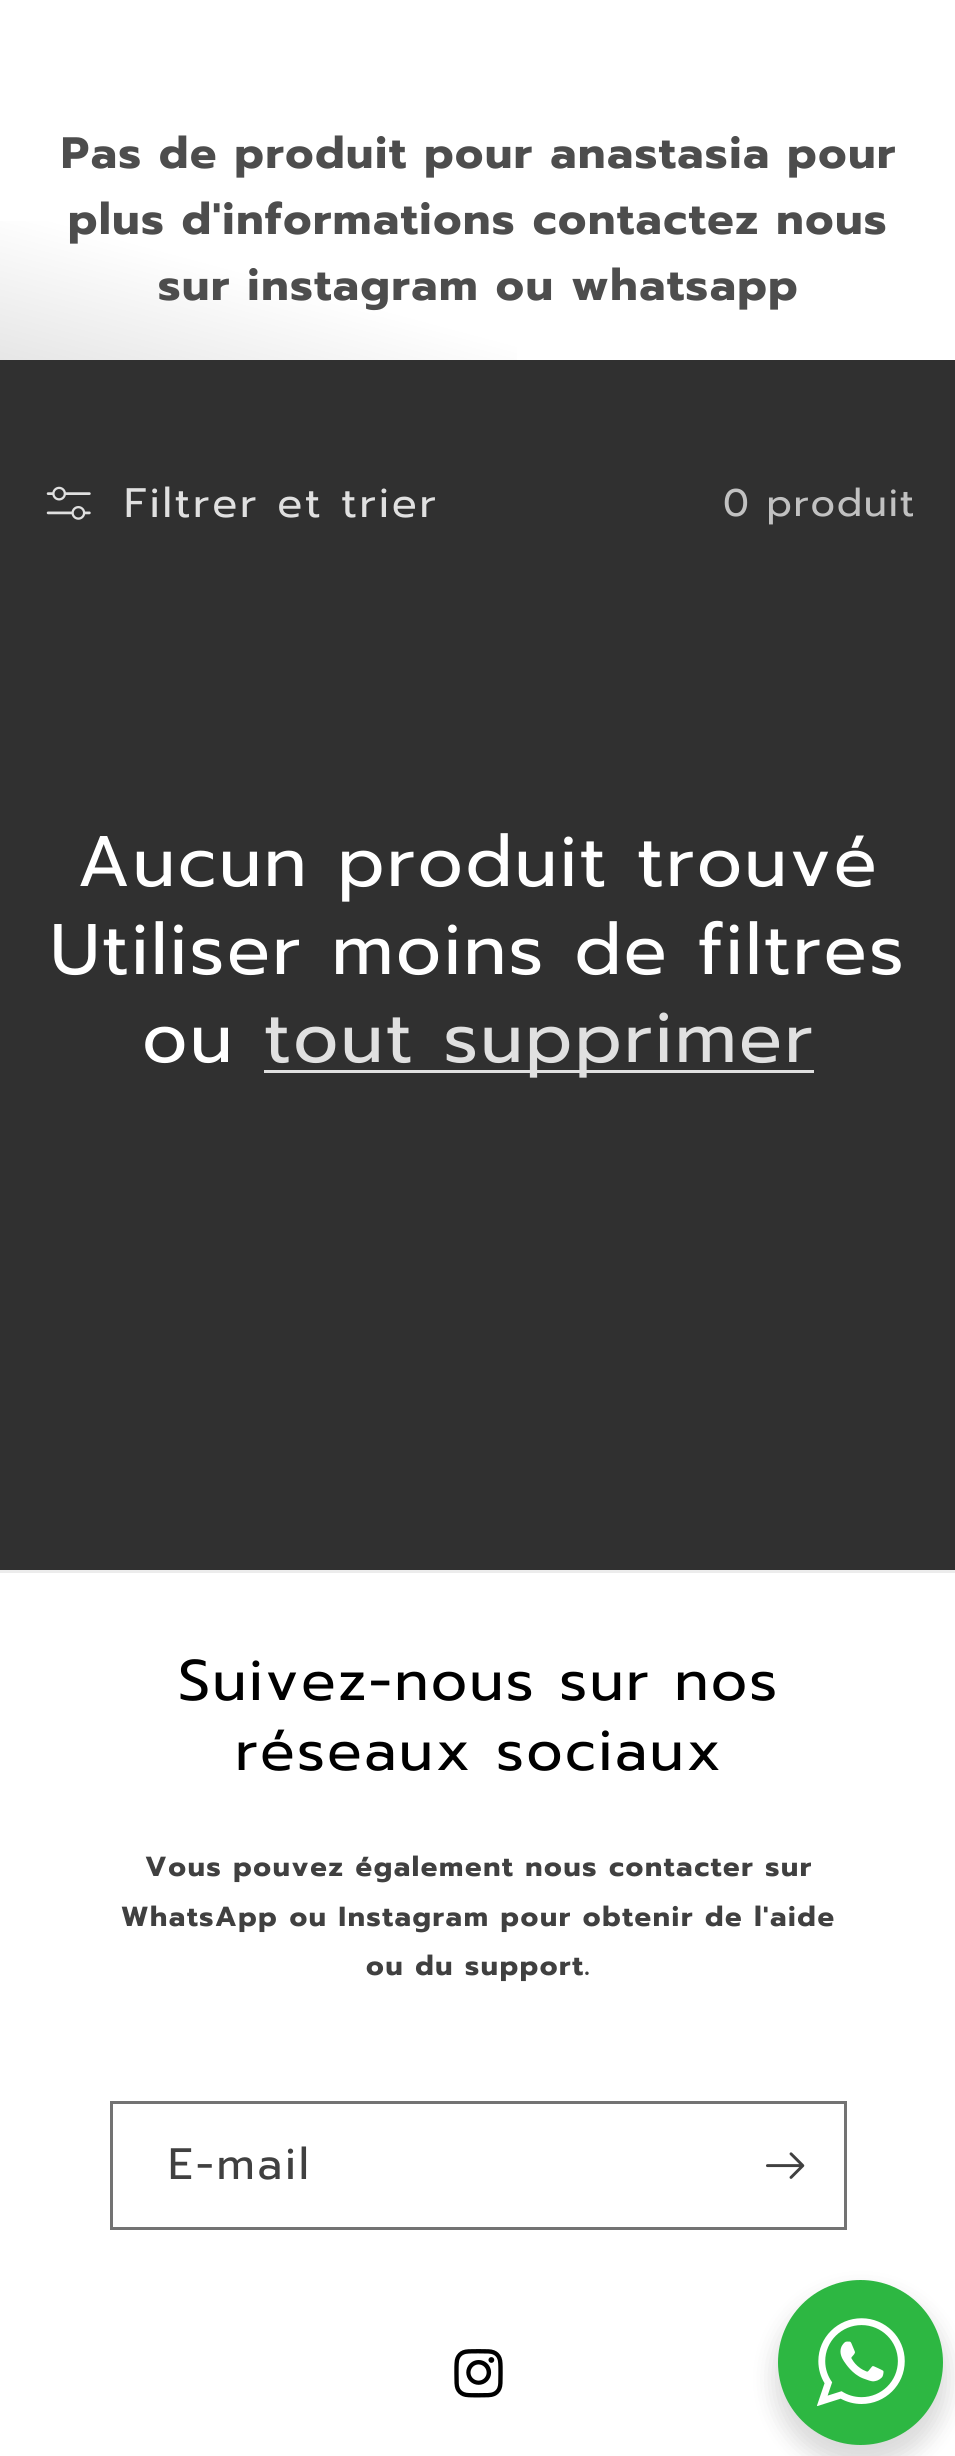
#include <cairo.h>
#include <math.h>
#include <stddef.h>


static void spaced_text(cairo_t *cr, double x, double y, const char *s, double letter, double word) {
    cairo_move_to(cr, x, y);
    while (*s) {
        char ch[5] = {0};
        int n = 0;
        do ch[n++] = *s++; while ((*s & 0xC0) == 0x80);
        cairo_show_text(cr, ch);
        cairo_rel_move_to(cr, letter + word * (*ch == ' '), 0);
    }
}

static void round_rect(cairo_t *cr, double x, double y, double w, double h, double r) {
    cairo_new_sub_path(cr);
    cairo_arc(cr, x + w - r, y + h - r, r, 0, M_PI / 2);
    cairo_arc(cr, x + r, y + h - r, r, M_PI / 2, M_PI);
    cairo_arc(cr, x + r, y + r, r, M_PI, 1.5 * M_PI);
    cairo_arc(cr, x + w - r, y + r, r, 1.5 * M_PI, 2 * M_PI);
    cairo_close_path(cr);
}

static void shadow(cairo_t *cr, double x, double y, double w, double h, double r, double blur, double alpha) {
    cairo_push_group_with_content(cr, CAIRO_CONTENT_ALPHA);
    cairo_set_operator(cr, CAIRO_OPERATOR_SOURCE);
    for (int i = 15; i >= -15 && fmin(w, h) + blur * i / 3 > 0; i -= 2) {
        double e = blur * i / 6;
        cairo_set_source_rgba(cr, 0, 0, 0, alpha * erfc((i - 1) / 8.5) / 2);
        round_rect(cr, x - e, y - e, w + 2 * e, h + 2 * e, fmax(0, fmin(r + e + blur * .6, fmin(w, h) / 2 + e)));
        cairo_fill(cr);
    }
    cairo_pattern_t *soft = cairo_pop_group(cr);
    cairo_mask(cr, soft);
    cairo_pattern_destroy(soft);
}

static void picture(cairo_t *cr, const char *path, double x, double y, double w, double h) {
    cairo_surface_t *image = cairo_image_surface_create_from_png(path);
    cairo_save(cr);
    cairo_set_source_surface(cr, image, x, y);
    cairo_rectangle(cr, x, y, w, h);
    cairo_fill(cr);
    cairo_restore(cr);
    cairo_surface_destroy(image);
}

int main(void) {
    cairo_surface_t *surface = cairo_image_surface_create(CAIRO_FORMAT_RGB24, 955, 2456);
    cairo_t *cr = cairo_create(surface);
    cairo_font_options_t *options = cairo_font_options_create();
    cairo_font_options_set_hint_metrics(options, CAIRO_HINT_METRICS_OFF);
    cairo_font_options_set_hint_style(options, CAIRO_HINT_STYLE_NONE);
    cairo_set_font_options(cr, options);
    cairo_set_miter_limit(cr, 4);
    cairo_pattern_t *gradient;
    cairo_set_source_rgb(cr, 1, 1, 1);
    cairo_paint(cr);
    gradient = cairo_pattern_create_linear(818, -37, 139, 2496);
    cairo_pattern_add_color_stop_rgba(gradient, 0.17, 1, 1, 1, 1);
    cairo_pattern_add_color_stop_rgba(gradient, 0.55, 0.349, 0.349, 0.349, 1);
    cairo_set_source(cr, gradient);
    cairo_pattern_destroy(gradient);
    cairo_rectangle(cr, 0, 221, 517, 139);
    cairo_fill(cr);
    cairo_select_font_face(cr, "Prompt", CAIRO_FONT_SLANT_NORMAL, CAIRO_FONT_WEIGHT_BOLD);
    cairo_set_font_size(cr, 44);
    cairo_set_source_rgb(cr, 0.302, 0.302, 0.302);
    spaced_text(cr, 61, 168, "Pas de produit pour anastasia pour", 1.65, 0);
    spaced_text(cr, 68, 234, "plus d'informations contactez nous", 1.65, 0);
    spaced_text(cr, 158, 300, "sur instagram ou whatsapp", 1.65, 0);
    cairo_set_source_rgb(cr, 0.188, 0.188, 0.188);
    cairo_rectangle(cr, 0, 360, 955, 1210);
    cairo_fill(cr);
    picture(cr, "img1.png", 46, 486, 45, 34);
    cairo_select_font_face(cr, "Prompt", CAIRO_FONT_SLANT_NORMAL, CAIRO_FONT_WEIGHT_NORMAL);
    cairo_set_font_size(cr, 41.25);
    cairo_set_source_rgb(cr, 0.878, 0.878, 0.878);
    spaced_text(cr, 124, 517, "Filtrer et trier", 2.75, 0);
    cairo_set_font_size(cr, 38.5);
    cairo_set_source_rgb(cr, 0.757, 0.757, 0.757);
    spaced_text(cr, 723, 516, "0 produit", 1.65, 0);
    cairo_set_font_size(cr, 71.5);
    cairo_set_source_rgb(cr, 1, 1, 1);
    spaced_text(cr, 77, 886, "Aucun produit trouvé", 2.15, 0);
    spaced_text(cr, 50, 974, "Utiliser moins de filtres", 2.15, 0);
    spaced_text(cr, 142, 1062, "ou", 2.15, 0);
    cairo_set_source_rgb(cr, 0.878, 0.878, 0.878);
    cairo_rectangle(cr, 264, 1070, 550, 3);
    cairo_fill(cr);
    spaced_text(cr, 264, 1062, "tout supprimer", 2.15, 0);
    cairo_set_source_rgb(cr, 0.922, 0.922, 0.922);
    cairo_rectangle(cr, 0, 1570, 955, 3);
    cairo_fill(cr);
    cairo_set_font_size(cr, 57.25);
    cairo_set_source_rgb(cr, 0, 0, 0);
    spaced_text(cr, 178, 1700, "Suivez-nous sur nos", 2.15, 0);
    spaced_text(cr, 235, 1770, "réseaux sociaux", 2.15, 0);
    cairo_select_font_face(cr, "Prompt", CAIRO_FONT_SLANT_NORMAL, CAIRO_FONT_WEIGHT_BOLD);
    cairo_set_font_size(cr, 27.65);
    cairo_set_source_rgb(cr, 0.251, 0.251, 0.251);
    spaced_text(cr, 145, 1876, "Vous pouvez également nous contacter sur", 1.65, 0);
    spaced_text(cr, 121, 1926, "WhatsApp ou Instagram pour obtenir de l'aide", 1.65, 0);
    spaced_text(cr, 366, 1975, "ou du support.", 1.65, 0);
    cairo_rectangle(cr, 111.5, 2102.5, 734, 126);
    cairo_set_source_rgb(cr, 0.451, 0.451, 0.451);
    cairo_set_line_width(cr, 3);
    cairo_stroke(cr);
    cairo_select_font_face(cr, "Prompt", CAIRO_FONT_SLANT_NORMAL, CAIRO_FONT_WEIGHT_NORMAL);
    cairo_set_font_size(cr, 44);
    cairo_set_source_rgb(cr, 0.251, 0.251, 0.251);
    spaced_text(cr, 168, 2179, "E-mail", 2.75, 0);
    picture(cr, "img2.png", 766, 2152, 39, 27);
    picture(cr, "img3.png", 454, 2349, 49, 49);
    cairo_set_source_rgb(cr, 0, 0, 0);
    shadow(cr, 773, 2291, 176, 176, 88, 11, 0.14);
    cairo_set_source_rgb(cr, 0.176, 0.718, 0.259);
    cairo_arc(cr, 860.5, 2362.5, 82.5, 0, 2 * M_PI);
    cairo_fill(cr);
    picture(cr, "img4.png", 817, 2318, 88, 88);
    cairo_surface_write_to_png(surface, "page.png");
    cairo_font_options_destroy(options);
    cairo_destroy(cr);
    cairo_surface_destroy(surface);
    return 0;
}
